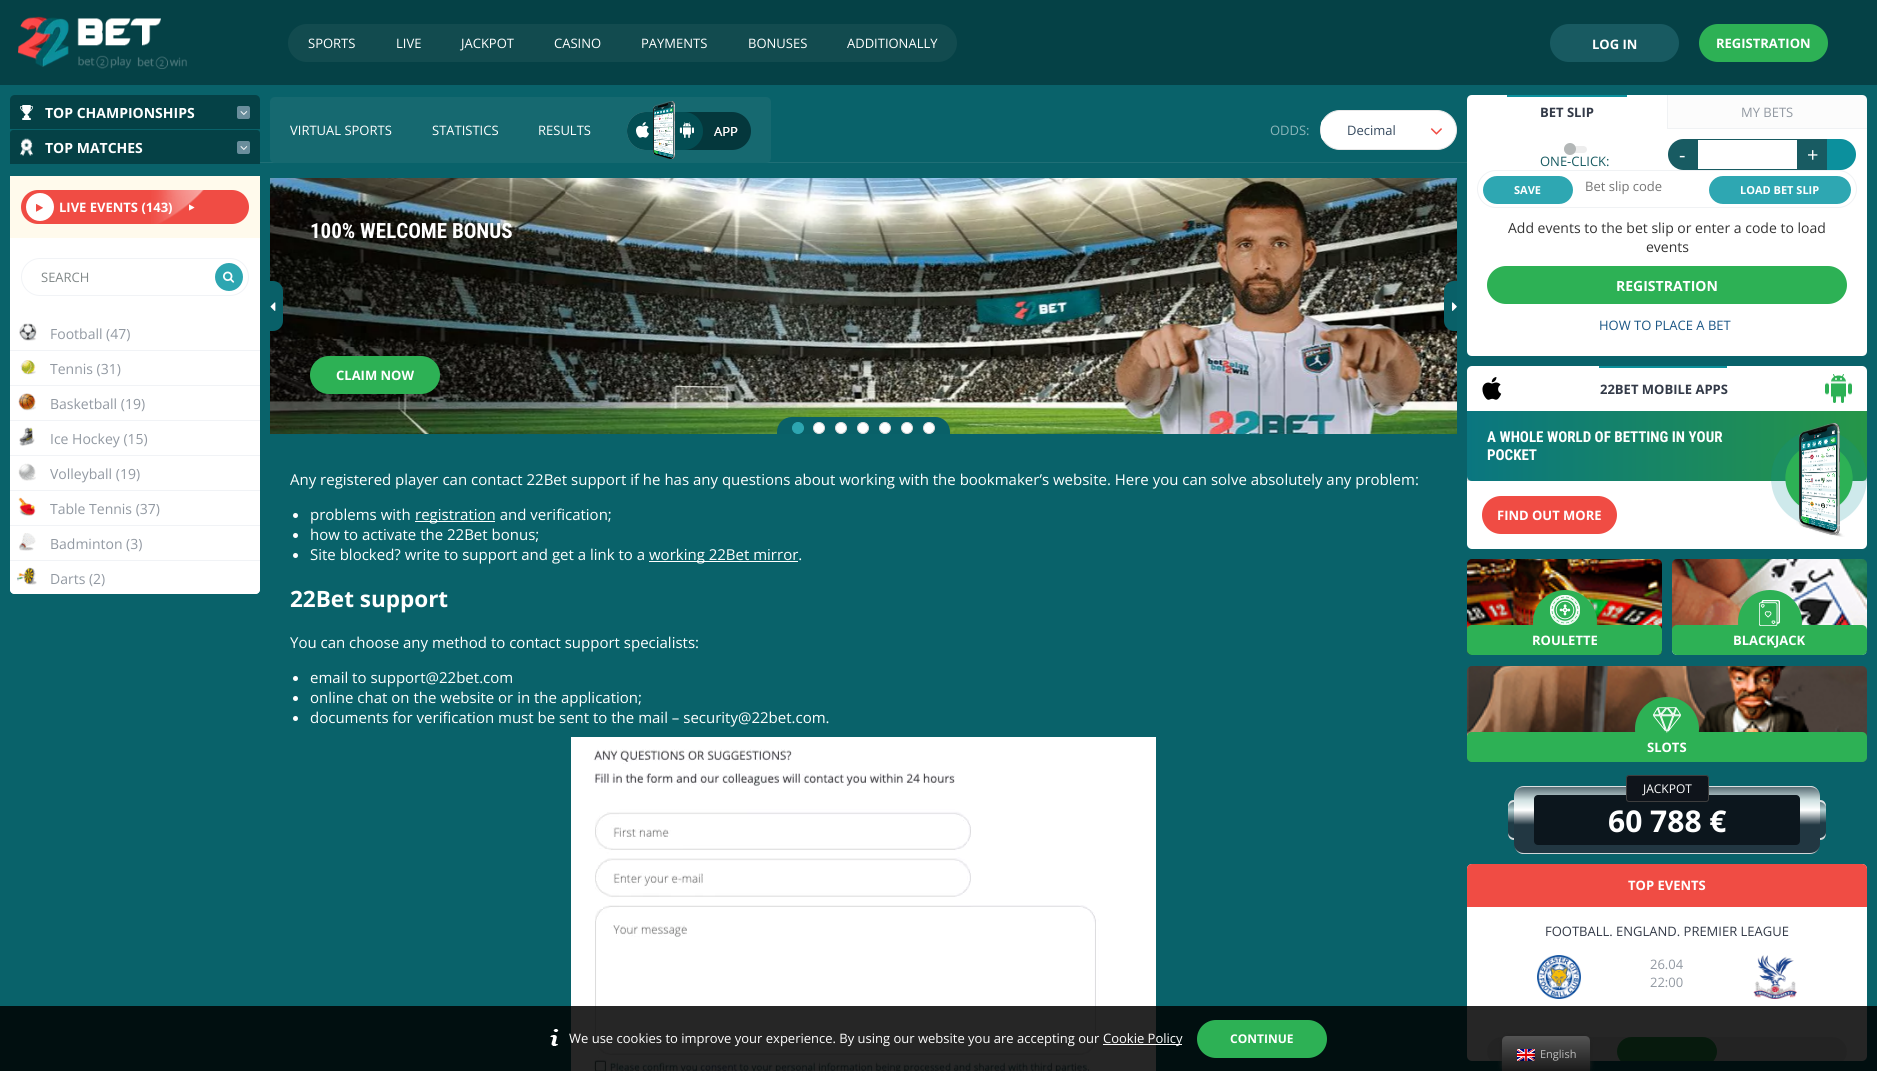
#include <cairo.h>
#include <math.h>
#include <stddef.h>


static void round_rect(cairo_t *cr, double x, double y, double w, double h, double r) {
    cairo_new_sub_path(cr);
    cairo_arc(cr, x + w - r, y + h - r, r, 0, M_PI / 2);
    cairo_arc(cr, x + r, y + h - r, r, M_PI / 2, M_PI);
    cairo_arc(cr, x + r, y + r, r, M_PI, 1.5 * M_PI);
    cairo_arc(cr, x + w - r, y + r, r, 1.5 * M_PI, 2 * M_PI);
    cairo_close_path(cr);
}

static void shadow(cairo_t *cr, double x, double y, double w, double h, double r, double blur, double alpha) {
    cairo_push_group_with_content(cr, CAIRO_CONTENT_ALPHA);
    cairo_set_operator(cr, CAIRO_OPERATOR_SOURCE);
    for (int i = 15; i >= -15 && fmin(w, h) + blur * i / 3 > 0; i -= 2) {
        double e = blur * i / 6;
        cairo_set_source_rgba(cr, 0, 0, 0, alpha * erfc((i - 1) / 8.5) / 2);
        round_rect(cr, x - e, y - e, w + 2 * e, h + 2 * e, fmax(0, fmin(r + e + blur * .6, fmin(w, h) / 2 + e)));
        cairo_fill(cr);
    }
    cairo_pattern_t *soft = cairo_pop_group(cr);
    cairo_mask(cr, soft);
    cairo_pattern_destroy(soft);
}

static void picture(cairo_t *cr, const char *path, double x, double y, double w, double h) {
    cairo_surface_t *image = cairo_image_surface_create_from_png(path);
    cairo_save(cr);
    cairo_set_source_surface(cr, image, x, y);
    cairo_rectangle(cr, x, y, w, h);
    cairo_fill(cr);
    cairo_restore(cr);
    cairo_surface_destroy(image);
}

int main(void) {
    cairo_surface_t *surface = cairo_image_surface_create(CAIRO_FORMAT_RGB24, 1877, 1071);
    cairo_t *cr = cairo_create(surface);
    cairo_font_options_t *options = cairo_font_options_create();
    cairo_font_options_set_hint_metrics(options, CAIRO_HINT_METRICS_OFF);
    cairo_font_options_set_hint_style(options, CAIRO_HINT_STYLE_NONE);
    cairo_set_font_options(cr, options);
    cairo_set_miter_limit(cr, 4);
    cairo_pattern_t *gradient;
    cairo_set_source_rgb(cr, 0.039, 0.384, 0.416);
    cairo_paint(cr);
    cairo_set_source_rgb(cr, 0.02, 0.255, 0.275);
    cairo_rectangle(cr, 0, 0, 1877, 85);
    cairo_fill(cr);
    picture(cr, "img1.png", 18, 16, 169, 53);
    cairo_set_source_rgb(cr, 0.071, 0.294, 0.31);
    round_rect(cr, 288, 24, 669, 38, 19);
    cairo_fill(cr);
    cairo_select_font_face(cr, "Open Sans", CAIRO_FONT_SLANT_NORMAL, CAIRO_FONT_WEIGHT_NORMAL);
    cairo_set_font_size(cr, 13);
    cairo_set_source_rgb(cr, 1, 1, 1);
    cairo_move_to(cr, 308, 48);
    cairo_show_text(cr, "SPORTS");
    cairo_move_to(cr, 396, 48);
    cairo_show_text(cr, "LIVE");
    cairo_move_to(cr, 461, 48);
    cairo_show_text(cr, "JACKPOT");
    cairo_move_to(cr, 554, 48);
    cairo_show_text(cr, "CASINO");
    cairo_move_to(cr, 641, 48);
    cairo_show_text(cr, "PAYMENTS");
    cairo_move_to(cr, 748, 48);
    cairo_show_text(cr, "BONUSES");
    cairo_move_to(cr, 847, 48);
    cairo_show_text(cr, "ADDITIONALLY");
    cairo_set_source_rgb(cr, 0.094, 0.353, 0.38);
    round_rect(cr, 1550, 24, 129, 38, 19);
    cairo_fill(cr);
    cairo_select_font_face(cr, "Open Sans", CAIRO_FONT_SLANT_NORMAL, CAIRO_FONT_WEIGHT_BOLD);
    cairo_set_source_rgb(cr, 1, 1, 1);
    cairo_move_to(cr, 1592, 49);
    cairo_show_text(cr, "LOG IN");
    cairo_set_source_rgb(cr, 0.176, 0.694, 0.333);
    round_rect(cr, 1699, 24, 129, 38, 19);
    cairo_fill(cr);
    cairo_set_source_rgb(cr, 1, 1, 1);
    cairo_move_to(cr, 1716, 48);
    cairo_show_text(cr, "REGISTRATION");
    cairo_set_source_rgb(cr, 0.02, 0.255, 0.275);
    cairo_new_path(cr);
    cairo_move_to(cr, 15, 95);
    cairo_line_to(cr, 255, 95);
    cairo_curve_to(cr, 258, 95, 260, 97, 260, 100);
    cairo_line_to(cr, 260, 129);
    cairo_line_to(cr, 10, 129);
    cairo_line_to(cr, 10, 100);
    cairo_curve_to(cr, 10, 97, 12, 95, 15, 95);
    cairo_close_path(cr);
    cairo_fill(cr);
    picture(cr, "img2.png", 20, 105, 13, 15);
    cairo_set_font_size(cr, 14);
    cairo_set_source_rgb(cr, 1, 1, 1);
    cairo_move_to(cr, 45, 118);
    cairo_show_text(cr, "TOP CHAMPIONSHIPS");
    cairo_set_source_rgb(cr, 0.416, 0.557, 0.612);
    round_rect(cr, 237, 106, 13, 13, 2);
    cairo_fill(cr);
    picture(cr, "img3.png", 240, 111, 8, 4);
    cairo_set_source_rgb(cr, 0.02, 0.255, 0.275);
    cairo_new_path(cr);
    cairo_move_to(cr, 13, 130);
    cairo_line_to(cr, 257, 130);
    cairo_curve_to(cr, 258.5, 130, 260, 131.5, 260, 133);
    cairo_line_to(cr, 260, 164);
    cairo_line_to(cr, 10, 164);
    cairo_line_to(cr, 10, 133);
    cairo_curve_to(cr, 10, 131.5, 11.5, 130, 13, 130);
    cairo_close_path(cr);
    cairo_fill(cr);
    picture(cr, "img4.png", 20, 138, 13, 18);
    cairo_set_source_rgb(cr, 1, 1, 1);
    cairo_move_to(cr, 45, 153);
    cairo_show_text(cr, "TOP MATCHES");
    cairo_set_source_rgb(cr, 0.416, 0.557, 0.612);
    round_rect(cr, 237, 141, 13, 13, 2);
    cairo_fill(cr);
    picture(cr, "img3.png", 240, 146, 8, 4);
    cairo_set_source_rgb(cr, 1, 0.98, 0.922);
    cairo_rectangle(cr, 10, 176, 250, 62);
    cairo_fill(cr);
    cairo_set_source_rgb(cr, 0.941, 0.298, 0.267);
    round_rect(cr, 21, 190, 228, 34, 17);
    cairo_fill(cr);
    picture(cr, "img5.png", 151, 190, 53, 34);
    cairo_set_source_rgb(cr, 1, 1, 1);
    cairo_arc(cr, 40, 207, 14, 0, 2 * M_PI);
    cairo_fill(cr);
    picture(cr, "img6.png", 36, 204, 7, 8);
    cairo_set_font_size(cr, 13);
    cairo_move_to(cr, 59, 212);
    cairo_show_text(cr, "LIVE EVENTS (143)");
    picture(cr, "img7.png", 189, 204, 6, 7);
    cairo_rectangle(cr, 10, 238, 250, 78);
    cairo_fill(cr);
    round_rect(cr, 21.5, 258.5, 227, 37, 18.5);
    cairo_set_source_rgb(cr, 0.945, 0.953, 0.961);
    cairo_set_line_width(cr, 1);
    cairo_stroke(cr);
    cairo_select_font_face(cr, "Open Sans", CAIRO_FONT_SLANT_NORMAL, CAIRO_FONT_WEIGHT_NORMAL);
    cairo_set_source_rgb(cr, 0.506, 0.533, 0.533);
    cairo_move_to(cr, 41, 282);
    cairo_show_text(cr, "SEARCH");
    cairo_set_source_rgb(cr, 0.176, 0.651, 0.694);
    cairo_new_path(cr);
    cairo_arc(cr, 229, 277, 14, 0, 2 * M_PI);
    cairo_fill(cr);
    picture(cr, "img8.png", 223, 271, 12, 12);
    cairo_set_source_rgb(cr, 1, 1, 1);
    cairo_new_path(cr);
    cairo_move_to(cr, 10, 316);
    cairo_line_to(cr, 260, 316);
    cairo_line_to(cr, 260, 589);
    cairo_curve_to(cr, 260, 592, 258, 594, 255, 594);
    cairo_line_to(cr, 15, 594);
    cairo_curve_to(cr, 12, 594, 10, 592, 10, 589);
    cairo_close_path(cr);
    cairo_fill(cr);
    picture(cr, "img9.png", 19, 323, 18, 18);
    cairo_set_font_size(cr, 14);
    cairo_set_source_rgb(cr, 0.573, 0.6, 0.635);
    cairo_move_to(cr, 50, 339);
    cairo_show_text(cr, "Football (47)");
    cairo_set_source_rgb(cr, 0.945, 0.953, 0.961);
    cairo_rectangle(cr, 10, 350, 250, 1);
    cairo_fill(cr);
    picture(cr, "img10.png", 20, 360, 16, 15);
    cairo_set_source_rgb(cr, 0.573, 0.6, 0.635);
    cairo_move_to(cr, 50, 374);
    cairo_show_text(cr, "Tennis (31)");
    cairo_set_source_rgb(cr, 0.945, 0.953, 0.961);
    cairo_rectangle(cr, 10, 385, 250, 1);
    cairo_fill(cr);
    picture(cr, "img11.png", 18, 393, 18, 18);
    cairo_set_source_rgb(cr, 0.573, 0.6, 0.635);
    cairo_move_to(cr, 50, 409);
    cairo_show_text(cr, "Basketball (19)");
    cairo_set_source_rgb(cr, 0.945, 0.953, 0.961);
    cairo_rectangle(cr, 10, 420, 250, 1);
    cairo_fill(cr);
    picture(cr, "img12.png", 19, 427, 16, 19);
    cairo_set_source_rgb(cr, 0.573, 0.6, 0.635);
    cairo_move_to(cr, 50, 444);
    cairo_show_text(cr, "Ice Hockey (15)");
    cairo_set_source_rgb(cr, 0.945, 0.953, 0.961);
    cairo_rectangle(cr, 10, 455, 250, 1);
    cairo_fill(cr);
    picture(cr, "img13.png", 18, 463, 18, 18);
    cairo_set_source_rgb(cr, 0.573, 0.6, 0.635);
    cairo_move_to(cr, 50, 479);
    cairo_show_text(cr, "Volleyball (19)");
    cairo_set_source_rgb(cr, 0.945, 0.953, 0.961);
    cairo_rectangle(cr, 10, 490, 250, 1);
    cairo_fill(cr);
    picture(cr, "img14.png", 18, 497, 18, 19);
    cairo_set_source_rgb(cr, 0.573, 0.6, 0.635);
    cairo_move_to(cr, 50, 514);
    cairo_show_text(cr, "Table Tennis (37)");
    cairo_set_source_rgb(cr, 0.945, 0.953, 0.961);
    cairo_rectangle(cr, 10, 525, 250, 1);
    cairo_fill(cr);
    picture(cr, "img15.png", 19, 533, 17, 18);
    cairo_set_source_rgb(cr, 0.573, 0.6, 0.635);
    cairo_move_to(cr, 50, 549);
    cairo_show_text(cr, "Badminton (3)");
    cairo_set_source_rgb(cr, 0.945, 0.953, 0.961);
    cairo_rectangle(cr, 10, 560, 250, 1);
    cairo_fill(cr);
    cairo_set_source_rgb(cr, 1, 1, 1);
    cairo_new_path(cr);
    cairo_move_to(cr, 10, 561);
    cairo_line_to(cr, 260, 561);
    cairo_line_to(cr, 260, 589);
    cairo_curve_to(cr, 260, 592, 258, 594, 255, 594);
    cairo_line_to(cr, 15, 594);
    cairo_curve_to(cr, 12, 594, 10, 592, 10, 589);
    cairo_close_path(cr);
    cairo_fill(cr);
    picture(cr, "img16.png", 17, 567, 20, 18);
    cairo_set_source_rgb(cr, 0.573, 0.6, 0.635);
    cairo_move_to(cr, 50, 584);
    cairo_show_text(cr, "Darts (2)");
    cairo_set_source_rgb(cr, 0.125, 0.435, 0.463);
    cairo_rectangle(cr, 260, 162, 1207, 1);
    cairo_fill(cr);
    cairo_set_source_rgb(cr, 0.086, 0.412, 0.439);
    round_rect(cr, 270, 97, 501, 66, 5);
    cairo_fill(cr);
    cairo_set_font_size(cr, 13);
    cairo_set_source_rgb(cr, 1, 1, 1);
    cairo_move_to(cr, 290, 135);
    cairo_show_text(cr, "VIRTUAL SPORTS");
    cairo_move_to(cr, 432, 135);
    cairo_show_text(cr, "STATISTICS");
    cairo_move_to(cr, 538, 135);
    cairo_show_text(cr, "RESULTS");
    picture(cr, "img17.png", 627, 101, 124, 58);
    cairo_set_source_rgb(cr, 0.545, 0.71, 0.729);
    cairo_move_to(cr, 1270, 135);
    cairo_show_text(cr, "ODDS:");
    cairo_set_source_rgb(cr, 1, 1, 1);
    round_rect(cr, 1320.5, 110.5, 136, 39, 19.5);
    cairo_fill_preserve(cr);
    cairo_set_source_rgb(cr, 0.91, 0.91, 0.91);
    cairo_stroke(cr);
    cairo_set_source_rgb(cr, 1, 1, 1);
    round_rect(cr, 1321, 119, 95, 22, 5);
    cairo_fill(cr);
    cairo_set_source_rgb(cr, 0.208, 0.286, 0.369);
    cairo_move_to(cr, 1347, 135);
    cairo_show_text(cr, "Decimal");
    picture(cr, "img18.png", 1430, 128, 12, 7);
    picture(cr, "img19.png", 270, 178, 296, 256);
    picture(cr, "img20.png", 565, 178, 298, 256);
    picture(cr, "img21.png", 862, 178, 298, 256);
    picture(cr, "img22.png", 1160, 178, 297, 256);
    cairo_select_font_face(cr, "Roboto Condensed", CAIRO_FONT_SLANT_NORMAL, CAIRO_FONT_WEIGHT_BOLD);
    cairo_set_font_size(cr, 21);
    cairo_set_source_rgb(cr, 1, 1, 1);
    cairo_move_to(cr, 310, 238);
    cairo_show_text(cr, "100% WELCOME BONUS");
    cairo_set_source_rgb(cr, 0.176, 0.694, 0.333);
    round_rect(cr, 310, 356, 130, 38, 19);
    cairo_fill(cr);
    cairo_select_font_face(cr, "Open Sans", CAIRO_FONT_SLANT_NORMAL, CAIRO_FONT_WEIGHT_BOLD);
    cairo_set_font_size(cr, 13);
    cairo_set_source_rgb(cr, 1, 1, 1);
    cairo_move_to(cr, 336, 380);
    cairo_show_text(cr, "CLAIM NOW");
    cairo_set_source_rgb(cr, 0.039, 0.376, 0.408);
    cairo_new_path(cr);
    cairo_move_to(cr, 270, 281);
    cairo_line_to(cr, 273, 281);
    cairo_curve_to(cr, 278.5, 281, 283, 285.5, 283, 291);
    cairo_line_to(cr, 283, 321);
    cairo_curve_to(cr, 283, 326.5, 278.5, 331, 273, 331);
    cairo_line_to(cr, 270, 331);
    cairo_close_path(cr);
    cairo_fill(cr);
    picture(cr, "img23.png", 270, 302, 6, 9);
    cairo_new_path(cr);
    cairo_move_to(cr, 1454, 281);
    cairo_line_to(cr, 1457, 281);
    cairo_line_to(cr, 1457, 331);
    cairo_line_to(cr, 1454, 331);
    cairo_curve_to(cr, 1448.5, 331, 1444, 326.5, 1444, 321);
    cairo_line_to(cr, 1444, 291);
    cairo_curve_to(cr, 1444, 285.5, 1448.5, 281, 1454, 281);
    cairo_close_path(cr);
    cairo_fill(cr);
    picture(cr, "img24.png", 1452, 302, 5, 9);
    cairo_new_path(cr);
    cairo_move_to(cr, 792, 417);
    cairo_line_to(cr, 935, 417);
    cairo_curve_to(cr, 943.5, 417, 950, 423.5, 950, 432);
    cairo_line_to(cr, 950, 434);
    cairo_line_to(cr, 777, 434);
    cairo_line_to(cr, 777, 432);
    cairo_curve_to(cr, 777, 423.5, 783.5, 417, 792, 417);
    cairo_close_path(cr);
    cairo_fill(cr);
    cairo_set_source_rgb(cr, 0.176, 0.651, 0.694);
    cairo_arc(cr, 798, 428, 5.5, 0, 2 * M_PI);
    cairo_fill_preserve(cr);
    cairo_stroke(cr);
    cairo_set_source_rgb(cr, 1, 1, 1);
    cairo_arc(cr, 819, 428, 5.5, 0, 2 * M_PI);
    cairo_fill_preserve(cr);
    cairo_set_source_rgb(cr, 0.847, 0.847, 0.847);
    cairo_stroke(cr);
    cairo_set_source_rgb(cr, 1, 1, 1);
    cairo_arc(cr, 841, 428, 5.5, 0, 2 * M_PI);
    cairo_fill_preserve(cr);
    cairo_set_source_rgb(cr, 0.847, 0.847, 0.847);
    cairo_stroke(cr);
    cairo_set_source_rgb(cr, 1, 1, 1);
    cairo_arc(cr, 863, 428, 5.5, 0, 2 * M_PI);
    cairo_fill_preserve(cr);
    cairo_set_source_rgb(cr, 0.847, 0.847, 0.847);
    cairo_stroke(cr);
    cairo_set_source_rgb(cr, 1, 1, 1);
    cairo_arc(cr, 885, 428, 5.5, 0, 2 * M_PI);
    cairo_fill_preserve(cr);
    cairo_set_source_rgb(cr, 0.847, 0.847, 0.847);
    cairo_stroke(cr);
    cairo_set_source_rgb(cr, 1, 1, 1);
    cairo_arc(cr, 907, 428, 5.5, 0, 2 * M_PI);
    cairo_fill_preserve(cr);
    cairo_set_source_rgb(cr, 0.847, 0.847, 0.847);
    cairo_stroke(cr);
    cairo_set_source_rgb(cr, 1, 1, 1);
    cairo_arc(cr, 929, 428, 5.5, 0, 2 * M_PI);
    cairo_fill_preserve(cr);
    cairo_set_source_rgb(cr, 0.847, 0.847, 0.847);
    cairo_stroke(cr);
    cairo_select_font_face(cr, "Open Sans", CAIRO_FONT_SLANT_NORMAL, CAIRO_FONT_WEIGHT_NORMAL);
    cairo_set_font_size(cr, 15);
    cairo_set_source_rgb(cr, 1, 1, 1);
    cairo_move_to(cr, 290, 485);
    cairo_show_text(cr, "Any registered player can contact 22Bet support if he has any questions about working with the bookmaker’s website. Here you can solve absolutely any problem:");
    cairo_new_path(cr);
    cairo_arc(cr, 295.5, 515.5, 2.5, 0, 2 * M_PI);
    cairo_fill(cr);
    cairo_move_to(cr, 310, 520);
    cairo_show_text(cr, "problems with");
    cairo_rectangle(cr, 415, 521, 80, 1);
    cairo_fill(cr);
    cairo_move_to(cr, 415, 520);
    cairo_show_text(cr, "registration and verification;");
    cairo_new_path(cr);
    cairo_arc(cr, 295.5, 535.5, 2.5, 0, 2 * M_PI);
    cairo_fill(cr);
    cairo_move_to(cr, 310, 540);
    cairo_show_text(cr, "how to activate the 22Bet bonus;");
    cairo_new_path(cr);
    cairo_arc(cr, 295.5, 555.5, 2.5, 0, 2 * M_PI);
    cairo_fill(cr);
    cairo_move_to(cr, 310, 560);
    cairo_show_text(cr, "Site blocked? write to support and get a link to a");
    cairo_rectangle(cr, 649, 561, 149, 1);
    cairo_fill(cr);
    cairo_move_to(cr, 649, 560);
    cairo_show_text(cr, "working 22Bet mirror.");
    cairo_select_font_face(cr, "Open Sans", CAIRO_FONT_SLANT_NORMAL, CAIRO_FONT_WEIGHT_BOLD);
    cairo_set_font_size(cr, 22.5);
    cairo_move_to(cr, 290, 607);
    cairo_show_text(cr, "22Bet support");
    cairo_select_font_face(cr, "Open Sans", CAIRO_FONT_SLANT_NORMAL, CAIRO_FONT_WEIGHT_NORMAL);
    cairo_set_font_size(cr, 15);
    cairo_move_to(cr, 290, 648);
    cairo_show_text(cr, "You can choose any method to contact support specialists:");
    cairo_new_path(cr);
    cairo_arc(cr, 295.5, 678.5, 2.5, 0, 2 * M_PI);
    cairo_fill(cr);
    cairo_move_to(cr, 310, 683);
    cairo_show_text(cr, "email to support@22bet.com");
    cairo_new_path(cr);
    cairo_arc(cr, 295.5, 698.5, 2.5, 0, 2 * M_PI);
    cairo_fill(cr);
    cairo_move_to(cr, 310, 703);
    cairo_show_text(cr, "online chat on the website or in the application;");
    cairo_new_path(cr);
    cairo_arc(cr, 295.5, 718.5, 2.5, 0, 2 * M_PI);
    cairo_fill(cr);
    cairo_move_to(cr, 310, 723);
    cairo_show_text(cr, "documents for verification must be sent to the mail – security@22bet.com.");
    picture(cr, "img25.png", 571, 737, 585, 334);
    cairo_new_path(cr);
    cairo_move_to(cr, 1472, 95);
    cairo_line_to(cr, 1667, 95);
    cairo_line_to(cr, 1667, 129);
    cairo_line_to(cr, 1467, 129);
    cairo_line_to(cr, 1467, 100);
    cairo_curve_to(cr, 1467, 97, 1469, 95, 1472, 95);
    cairo_close_path(cr);
    cairo_fill(cr);
    cairo_set_source_rgb(cr, 0.047, 0.565, 0.616);
    cairo_rectangle(cr, 1507, 95, 120, 2);
    cairo_fill(cr);
    cairo_select_font_face(cr, "Open Sans", CAIRO_FONT_SLANT_NORMAL, CAIRO_FONT_WEIGHT_BOLD);
    cairo_set_font_size(cr, 13);
    cairo_set_source_rgb(cr, 0.2, 0.227, 0.282);
    cairo_move_to(cr, 1540, 117);
    cairo_show_text(cr, "BET SLIP");
    cairo_set_source_rgb(cr, 0.988, 0.988, 0.988);
    cairo_new_path(cr);
    cairo_move_to(cr, 1667, 95);
    cairo_line_to(cr, 1862, 95);
    cairo_curve_to(cr, 1865, 95, 1867, 97, 1867, 100);
    cairo_line_to(cr, 1867, 129);
    cairo_line_to(cr, 1667, 129);
    cairo_close_path(cr);
    cairo_fill(cr);
    cairo_set_source_rgb(cr, 0.941, 0.949, 0.957);
    cairo_rectangle(cr, 1667, 128, 200, 1);
    cairo_fill(cr);
    cairo_rectangle(cr, 1667, 95, 1, 34);
    cairo_fill(cr);
    cairo_select_font_face(cr, "Open Sans", CAIRO_FONT_SLANT_NORMAL, CAIRO_FONT_WEIGHT_NORMAL);
    cairo_set_source_rgb(cr, 0.573, 0.6, 0.635);
    cairo_move_to(cr, 1741, 117);
    cairo_show_text(cr, "MY BETS");
    cairo_set_source_rgb(cr, 1, 1, 1);
    cairo_new_path(cr);
    cairo_move_to(cr, 1467, 129);
    cairo_line_to(cr, 1867, 129);
    cairo_line_to(cr, 1867, 351);
    cairo_curve_to(cr, 1867, 354, 1865, 356, 1862, 356);
    cairo_line_to(cr, 1472, 356);
    cairo_curve_to(cr, 1469, 356, 1467, 354, 1467, 351);
    cairo_close_path(cr);
    cairo_fill(cr);
    cairo_set_source_rgb(cr, 0.094, 0.357, 0.384);
    cairo_new_path(cr);
    cairo_move_to(cr, 1683.5, 139);
    cairo_line_to(cr, 1697, 139);
    cairo_line_to(cr, 1697, 170);
    cairo_line_to(cr, 1683.5, 170);
    cairo_curve_to(cr, 1675, 170, 1668, 163, 1668, 154.5);
    cairo_curve_to(cr, 1668, 146, 1675, 139, 1683.5, 139);
    cairo_close_path(cr);
    cairo_fill(cr);
    cairo_set_font_size(cr, 20);
    cairo_set_source_rgb(cr, 1, 1, 1);
    cairo_move_to(cr, 1679, 162);
    cairo_show_text(cr, "-");
    cairo_rectangle(cr, 1697.5, 139.5, 100, 30);
    cairo_set_source_rgb(cr, 0.094, 0.357, 0.384);
    cairo_stroke(cr);
    cairo_rectangle(cr, 1798, 139, 29, 31);
    cairo_fill(cr);
    cairo_set_source_rgb(cr, 1, 1, 1);
    cairo_move_to(cr, 1807, 162);
    cairo_show_text(cr, "+");
    cairo_set_source_rgb(cr, 0.047, 0.565, 0.616);
    cairo_new_path(cr);
    cairo_move_to(cr, 1827, 139);
    cairo_line_to(cr, 1840.5, 139);
    cairo_curve_to(cr, 1849, 139, 1856, 146, 1856, 154.5);
    cairo_curve_to(cr, 1856, 163, 1849, 170, 1840.5, 170);
    cairo_line_to(cr, 1827, 170);
    cairo_close_path(cr);
    cairo_fill(cr);
    cairo_set_source_rgb(cr, 0.929, 0.929, 0.929);
    round_rect(cr, 1564, 146, 23, 7, 3.5);
    cairo_fill(cr);
    cairo_set_source_rgb(cr, 0.702, 0.718, 0.718);
    cairo_arc(cr, 1570, 149, 6, 0, 2 * M_PI);
    cairo_fill(cr);
    cairo_set_font_size(cr, 13);
    cairo_set_source_rgb(cr, 0.094, 0.357, 0.384);
    cairo_move_to(cr, 1540, 166);
    cairo_show_text(cr, "ONE-CLICK:");
    round_rect(cr, 1477.5, 170.5, 379, 37, 18.5);
    cairo_set_source_rgb(cr, 0.941, 0.949, 0.957);
    cairo_stroke(cr);
    cairo_set_source_rgb(cr, 0.18, 0.655, 0.698);
    round_rect(cr, 1483, 176, 90, 28, 14);
    cairo_fill(cr);
    cairo_select_font_face(cr, "Open Sans", CAIRO_FONT_SLANT_NORMAL, CAIRO_FONT_WEIGHT_BOLD);
    cairo_set_font_size(cr, 11);
    cairo_set_source_rgb(cr, 1, 1, 1);
    cairo_move_to(cr, 1514, 194);
    cairo_show_text(cr, "SAVE");
    cairo_select_font_face(cr, "Open Sans", CAIRO_FONT_SLANT_NORMAL, CAIRO_FONT_WEIGHT_NORMAL);
    cairo_set_font_size(cr, 13);
    cairo_set_source_rgb(cr, 0.459, 0.459, 0.459);
    cairo_move_to(cr, 1585, 191);
    cairo_show_text(cr, "Bet slip code");
    cairo_set_source_rgb(cr, 0.18, 0.655, 0.698);
    round_rect(cr, 1709, 176, 142, 28, 14);
    cairo_fill(cr);
    cairo_select_font_face(cr, "Open Sans", CAIRO_FONT_SLANT_NORMAL, CAIRO_FONT_WEIGHT_BOLD);
    cairo_set_font_size(cr, 11);
    cairo_set_source_rgb(cr, 1, 1, 1);
    cairo_move_to(cr, 1740, 194);
    cairo_show_text(cr, "LOAD BET SLIP");
    cairo_select_font_face(cr, "Open Sans", CAIRO_FONT_SLANT_NORMAL, CAIRO_FONT_WEIGHT_NORMAL);
    cairo_set_font_size(cr, 14);
    cairo_set_source_rgb(cr, 0.2, 0.2, 0.2);
    cairo_move_to(cr, 1508, 233);
    cairo_show_text(cr, "Add events to the bet slip or enter a code to load");
    cairo_move_to(cr, 1646, 252);
    cairo_show_text(cr, "events");
    cairo_set_source_rgb(cr, 0.176, 0.694, 0.333);
    round_rect(cr, 1487, 266, 360, 38, 19);
    cairo_fill(cr);
    cairo_select_font_face(cr, "Open Sans", CAIRO_FONT_SLANT_NORMAL, CAIRO_FONT_WEIGHT_BOLD);
    cairo_set_source_rgb(cr, 1, 1, 1);
    cairo_move_to(cr, 1616, 291);
    cairo_show_text(cr, "REGISTRATION");
    cairo_select_font_face(cr, "Open Sans", CAIRO_FONT_SLANT_NORMAL, CAIRO_FONT_WEIGHT_NORMAL);
    cairo_set_font_size(cr, 13);
    cairo_set_source_rgb(cr, 0.102, 0.337, 0.522);
    cairo_move_to(cr, 1599, 330);
    cairo_show_text(cr, "HOW TO PLACE A BET");
    cairo_set_source_rgb(cr, 1, 1, 1);
    round_rect(cr, 1467, 366, 400, 183, 5);
    cairo_fill(cr);
    cairo_set_source_rgb(cr, 0.851, 0.851, 0.851);
    cairo_rectangle(cr, 1467, 476, 400, 5);
    cairo_fill(cr);
    picture(cr, "img26.png", 1482, 377, 20, 23);
    cairo_set_source_rgb(cr, 0.047, 0.561, 0.608);
    cairo_rectangle(cr, 1599, 366, 128, 2);
    cairo_fill(cr);
    cairo_select_font_face(cr, "Open Sans", CAIRO_FONT_SLANT_NORMAL, CAIRO_FONT_WEIGHT_BOLD);
    cairo_set_source_rgb(cr, 0.2, 0.227, 0.282);
    cairo_move_to(cr, 1600, 394);
    cairo_show_text(cr, "22BET MOBILE APPS");
    picture(cr, "img27.png", 1825, 374, 27, 29);
    gradient = cairo_pattern_create_linear(1467, 446, 1867, 446);
    cairo_pattern_add_color_stop_rgba(gradient, 0, 0.039, 0.463, 0.502, 1);
    cairo_pattern_add_color_stop_rgba(gradient, 1, 0.149, 0.588, 0.282, 1);
    cairo_set_source(cr, gradient);
    cairo_pattern_destroy(gradient);
    cairo_new_path(cr);
    cairo_move_to(cr, 1467, 411);
    cairo_line_to(cr, 1867, 411);
    cairo_line_to(cr, 1867, 476);
    cairo_curve_to(cr, 1867, 479, 1865, 481, 1862, 481);
    cairo_line_to(cr, 1472, 481);
    cairo_curve_to(cr, 1469, 481, 1467, 479, 1467, 476);
    cairo_close_path(cr);
    cairo_fill(cr);
    cairo_select_font_face(cr, "Roboto Condensed", CAIRO_FONT_SLANT_NORMAL, CAIRO_FONT_WEIGHT_BOLD);
    cairo_set_font_size(cr, 15);
    cairo_set_source_rgb(cr, 1, 1, 1);
    cairo_move_to(cr, 1487, 442);
    cairo_show_text(cr, "A WHOLE WORLD OF BETTING IN YOUR");
    cairo_move_to(cr, 1487, 460);
    cairo_show_text(cr, "POCKET");
    picture(cr, "img28.png", 1771, 423, 96, 114);
    cairo_set_source_rgb(cr, 0.941, 0.298, 0.267);
    round_rect(cr, 1482, 496, 135, 38, 19);
    cairo_fill(cr);
    cairo_select_font_face(cr, "Open Sans", CAIRO_FONT_SLANT_NORMAL, CAIRO_FONT_WEIGHT_BOLD);
    cairo_set_font_size(cr, 13);
    cairo_set_source_rgb(cr, 1, 1, 1);
    cairo_move_to(cr, 1497, 520);
    cairo_show_text(cr, "FIND OUT MORE");
    picture(cr, "img29.png", 1467, 559, 195, 96);
    cairo_set_source_rgb(cr, 0.176, 0.694, 0.333);
    round_rect(cr, 1467, 625, 195, 30, 5);
    cairo_fill(cr);
    cairo_arc(cr, 1565, 622, 32, 0, 2 * M_PI);
    cairo_fill(cr);
    picture(cr, "img30.png", 1550, 595, 30, 30);
    cairo_set_source_rgb(cr, 1, 1, 1);
    cairo_move_to(cr, 1532, 645);
    cairo_show_text(cr, "ROULETTE");
    picture(cr, "img31.png", 1672, 559, 195, 96);
    cairo_set_source_rgb(cr, 0.176, 0.694, 0.333);
    round_rect(cr, 1672, 625, 195, 30, 5);
    cairo_fill(cr);
    cairo_arc(cr, 1770, 622, 32, 0, 2 * M_PI);
    cairo_fill(cr);
    picture(cr, "img32.png", 1759, 600, 21, 26);
    cairo_set_source_rgb(cr, 1, 1, 1);
    cairo_move_to(cr, 1733, 645);
    cairo_show_text(cr, "BLACKJACK");
    picture(cr, "img33.png", 1467, 666, 400, 96);
    cairo_set_source_rgb(cr, 0.176, 0.694, 0.333);
    round_rect(cr, 1467, 732, 400, 30, 5);
    cairo_fill(cr);
    cairo_arc(cr, 1667, 729, 32, 0, 2 * M_PI);
    cairo_fill(cr);
    picture(cr, "img34.png", 1653, 707, 28, 26);
    cairo_set_source_rgb(cr, 1, 1, 1);
    cairo_move_to(cr, 1647, 752);
    cairo_show_text(cr, "SLOTS");
    gradient = cairo_pattern_create_linear(1667, 781, 1667, 854);
    cairo_pattern_add_color_stop_rgba(gradient, 0, 0.133, 0.216, 0.259, 1);
    cairo_pattern_add_color_stop_rgba(gradient, 0.26, 0.808, 0.878, 0.882, 1);
    cairo_pattern_add_color_stop_rgba(gradient, 0.4, 1, 1, 1, 1);
    cairo_pattern_add_color_stop_rgba(gradient, 0.6, 0.133, 0.216, 0.259, 1);
    cairo_set_source(cr, gradient);
    cairo_pattern_destroy(gradient);
    round_rect(cr, 1514, 786, 306, 68, 10);
    cairo_fill(cr);
    cairo_set_source_rgba(cr, 1, 1, 1, 0.8);
    cairo_new_path(cr);
    cairo_move_to(cr, 1514, 843);
    cairo_curve_to(cr, 1514, 848, 1517, 853, 1522, 854);
    cairo_line_to(cr, 1810, 854);
    cairo_curve_to(cr, 1816, 854, 1820, 849, 1820, 843);
    cairo_curve_to(cr, 1820, 849, 1816, 853, 1810, 853);
    cairo_line_to(cr, 1524, 853);
    cairo_curve_to(cr, 1518, 853, 1514, 849, 1514, 843);
    cairo_close_path(cr);
    cairo_fill(cr);
    cairo_new_path(cr);
    cairo_move_to(cr, 1524, 787);
    cairo_line_to(cr, 1810, 787);
    cairo_curve_to(cr, 1816, 787, 1820, 791, 1820, 797);
    cairo_curve_to(cr, 1820, 792, 1817, 787, 1812, 786);
    cairo_line_to(cr, 1524, 786);
    cairo_curve_to(cr, 1518, 786, 1514, 791, 1514, 797);
    cairo_curve_to(cr, 1514, 791, 1518, 787, 1524, 787);
    cairo_close_path(cr);
    cairo_fill(cr);
    cairo_set_source_rgb(cr, 0.047, 0.086, 0.114);
    round_rect(cr, 1534, 795, 266, 50, 4);
    cairo_fill(cr);
    cairo_set_source_rgb(cr, 0.059, 0.082, 0.106);
    round_rect(cr, 1626.5, 775.5, 82, 26, 2.5);
    cairo_fill_preserve(cr);
    cairo_set_source_rgb(cr, 0.243, 0.243, 0.243);
    cairo_stroke(cr);
    cairo_select_font_face(cr, "Open Sans", CAIRO_FONT_SLANT_NORMAL, CAIRO_FONT_WEIGHT_NORMAL);
    cairo_set_font_size(cr, 12);
    cairo_set_source_rgb(cr, 1, 1, 1);
    cairo_move_to(cr, 1643, 793);
    cairo_show_text(cr, "JACKPOT");
    gradient = cairo_pattern_create_linear(1511, 797, 1511, 840);
    cairo_pattern_add_color_stop_rgba(gradient, 0, 0.122, 0.235, 0.278, 1);
    cairo_pattern_add_color_stop_rgba(gradient, 0.3, 0.714, 0.816, 0.824, 1);
    cairo_pattern_add_color_stop_rgba(gradient, 0.6, 0.122, 0.235, 0.278, 1);
    cairo_set_source(cr, gradient);
    cairo_pattern_destroy(gradient);
    cairo_new_path(cr);
    cairo_move_to(cr, 1514, 800);
    cairo_line_to(cr, 1514, 840);
    cairo_curve_to(cr, 1510.5, 840, 1508, 837.5, 1508, 834);
    cairo_line_to(cr, 1508, 806);
    cairo_curve_to(cr, 1508, 802.5, 1510.5, 800, 1514, 800);
    cairo_close_path(cr);
    cairo_fill(cr);
    cairo_set_source_rgba(cr, 1, 1, 1, 0.8);
    cairo_new_path(cr);
    cairo_move_to(cr, 1508, 832);
    cairo_curve_to(cr, 1508, 836, 1509, 840, 1514, 840);
    cairo_line_to(cr, 1514, 838);
    cairo_curve_to(cr, 1511, 838, 1508, 835, 1508, 832);
    cairo_close_path(cr);
    cairo_move_to(cr, 1514, 800);
    cairo_curve_to(cr, 1509, 800, 1508, 804, 1508, 808);
    cairo_curve_to(cr, 1508, 805, 1511, 802, 1514, 802);
    cairo_close_path(cr);
    cairo_fill(cr);
    cairo_select_font_face(cr, "Open Sans", CAIRO_FONT_SLANT_NORMAL, CAIRO_FONT_WEIGHT_BOLD);
    cairo_set_font_size(cr, 30);
    cairo_set_source_rgb(cr, 1, 1, 1);
    cairo_move_to(cr, 1608, 832);
    cairo_show_text(cr, "60 788 €");
    gradient = cairo_pattern_create_linear(1823, 797, 1823, 840);
    cairo_pattern_add_color_stop_rgba(gradient, 0, 0.122, 0.235, 0.278, 1);
    cairo_pattern_add_color_stop_rgba(gradient, 0.3, 0.714, 0.816, 0.824, 1);
    cairo_pattern_add_color_stop_rgba(gradient, 0.6, 0.122, 0.235, 0.278, 1);
    cairo_set_source(cr, gradient);
    cairo_pattern_destroy(gradient);
    cairo_new_path(cr);
    cairo_move_to(cr, 1820, 800);
    cairo_curve_to(cr, 1823.5, 800, 1826, 802.5, 1826, 806);
    cairo_line_to(cr, 1826, 834);
    cairo_curve_to(cr, 1826, 837.5, 1823.5, 840, 1820, 840);
    cairo_close_path(cr);
    cairo_fill(cr);
    cairo_set_source_rgba(cr, 1, 1, 1, 0.8);
    cairo_new_path(cr);
    cairo_move_to(cr, 1826, 832);
    cairo_curve_to(cr, 1826, 835, 1823, 838, 1820, 838);
    cairo_line_to(cr, 1820, 840);
    cairo_curve_to(cr, 1825, 840, 1826, 836, 1826, 832);
    cairo_close_path(cr);
    cairo_move_to(cr, 1820, 802);
    cairo_curve_to(cr, 1823, 802, 1826, 805, 1826, 808);
    cairo_curve_to(cr, 1826, 804, 1825, 800, 1820, 800);
    cairo_close_path(cr);
    cairo_fill(cr);
    cairo_set_source_rgb(cr, 1, 1, 1);
    round_rect(cr, 1467, 864, 400, 197, 5);
    cairo_fill(cr);
    cairo_set_source_rgb(cr, 0.941, 0.298, 0.267);
    cairo_new_path(cr);
    cairo_move_to(cr, 1472, 864);
    cairo_line_to(cr, 1862, 864);
    cairo_curve_to(cr, 1865, 864, 1867, 866, 1867, 869);
    cairo_line_to(cr, 1867, 907);
    cairo_line_to(cr, 1467, 907);
    cairo_line_to(cr, 1467, 869);
    cairo_curve_to(cr, 1467, 866, 1469, 864, 1472, 864);
    cairo_close_path(cr);
    cairo_fill(cr);
    cairo_set_font_size(cr, 13);
    cairo_set_source_rgb(cr, 1, 1, 1);
    cairo_move_to(cr, 1628, 890);
    cairo_show_text(cr, "TOP EVENTS");
    cairo_select_font_face(cr, "Open Sans", CAIRO_FONT_SLANT_NORMAL, CAIRO_FONT_WEIGHT_NORMAL);
    cairo_set_source_rgb(cr, 0.2, 0.227, 0.282);
    cairo_move_to(cr, 1545, 936);
    cairo_show_text(cr, "FOOTBALL. ENGLAND. PREMIER LEAGUE");
    picture(cr, "img35.png", 1537, 955, 44, 44);
    cairo_set_source_rgb(cr, 0.573, 0.6, 0.635);
    cairo_move_to(cr, 1650, 969);
    cairo_show_text(cr, "26.04");
    cairo_move_to(cr, 1650, 987);
    cairo_show_text(cr, "22:00");
    picture(cr, "img36.png", 1753, 955, 44, 44);
    cairo_save(cr);
    round_rect(cr, 1467, 95, 400, 966, 5);
    cairo_clip(cr);
    cairo_set_source_rgb(cr, 0.933, 0.933, 0.933);
    round_rect(cr, 1487, 1037, 360, 29, 14.5);
    cairo_fill(cr);
    cairo_set_source_rgb(cr, 0.176, 0.694, 0.333);
    round_rect(cr, 1617, 1037, 100, 29, 14.5);
    cairo_fill(cr);
    cairo_restore(cr);
    cairo_set_source_rgba(cr, 0, 0, 0, 0.85);
    cairo_rectangle(cr, 0, 1006, 1877, 65);
    cairo_fill(cr);
    picture(cr, "img37.png", 550, 1029, 9, 17);
    cairo_set_source_rgb(cr, 1, 1, 1);
    cairo_move_to(cr, 569, 1043);
    cairo_show_text(cr, "We use cookies to improve your experience. By using our website you are accepting our");
    cairo_rectangle(cr, 1103, 1044, 79, 1);
    cairo_fill(cr);
    cairo_move_to(cr, 1103, 1043);
    cairo_show_text(cr, "Cookie Policy");
    cairo_set_source_rgb(cr, 0.176, 0.694, 0.333);
    round_rect(cr, 1197, 1020, 130, 38, 19);
    cairo_fill(cr);
    cairo_select_font_face(cr, "Open Sans", CAIRO_FONT_SLANT_NORMAL, CAIRO_FONT_WEIGHT_BOLD);
    cairo_set_font_size(cr, 12);
    cairo_set_source_rgb(cr, 1, 1, 1);
    cairo_move_to(cr, 1230, 1043);
    cairo_show_text(cr, "CONTINUE");
    cairo_set_source_rgb(cr, 0.129, 0.129, 0.129);
    shadow(cr, 1502, 1036, 88, 35, 5, 2.5, 1);
    gradient = cairo_pattern_create_linear(1546, 1071, 1546, 1036);
    cairo_pattern_add_color_stop_rgba(gradient, 0, 0.106, 0.106, 0.106, 1);
    cairo_pattern_add_color_stop_rgba(gradient, 1, 0.329, 0.329, 0.329, 1);
    cairo_set_source(cr, gradient);
    cairo_pattern_destroy(gradient);
    cairo_new_path(cr);
    cairo_move_to(cr, 1507, 1036);
    cairo_line_to(cr, 1585, 1036);
    cairo_curve_to(cr, 1588, 1036, 1590, 1038, 1590, 1041);
    cairo_line_to(cr, 1590, 1071);
    cairo_line_to(cr, 1502, 1071);
    cairo_line_to(cr, 1502, 1041);
    cairo_curve_to(cr, 1502, 1038, 1504, 1036, 1507, 1036);
    cairo_close_path(cr);
    cairo_fill(cr);
    picture(cr, "img38.png", 1517, 1049, 18, 12);
    cairo_select_font_face(cr, "Open Sans", CAIRO_FONT_SLANT_NORMAL, CAIRO_FONT_WEIGHT_NORMAL);
    cairo_set_font_size(cr, 11);
    cairo_set_source_rgb(cr, 0.741, 0.741, 0.741);
    cairo_move_to(cr, 1540, 1058);
    cairo_show_text(cr, "English");
    cairo_surface_write_to_png(surface, "page.png");
    cairo_font_options_destroy(options);
    cairo_destroy(cr);
    cairo_surface_destroy(surface);
    return 0;
}
